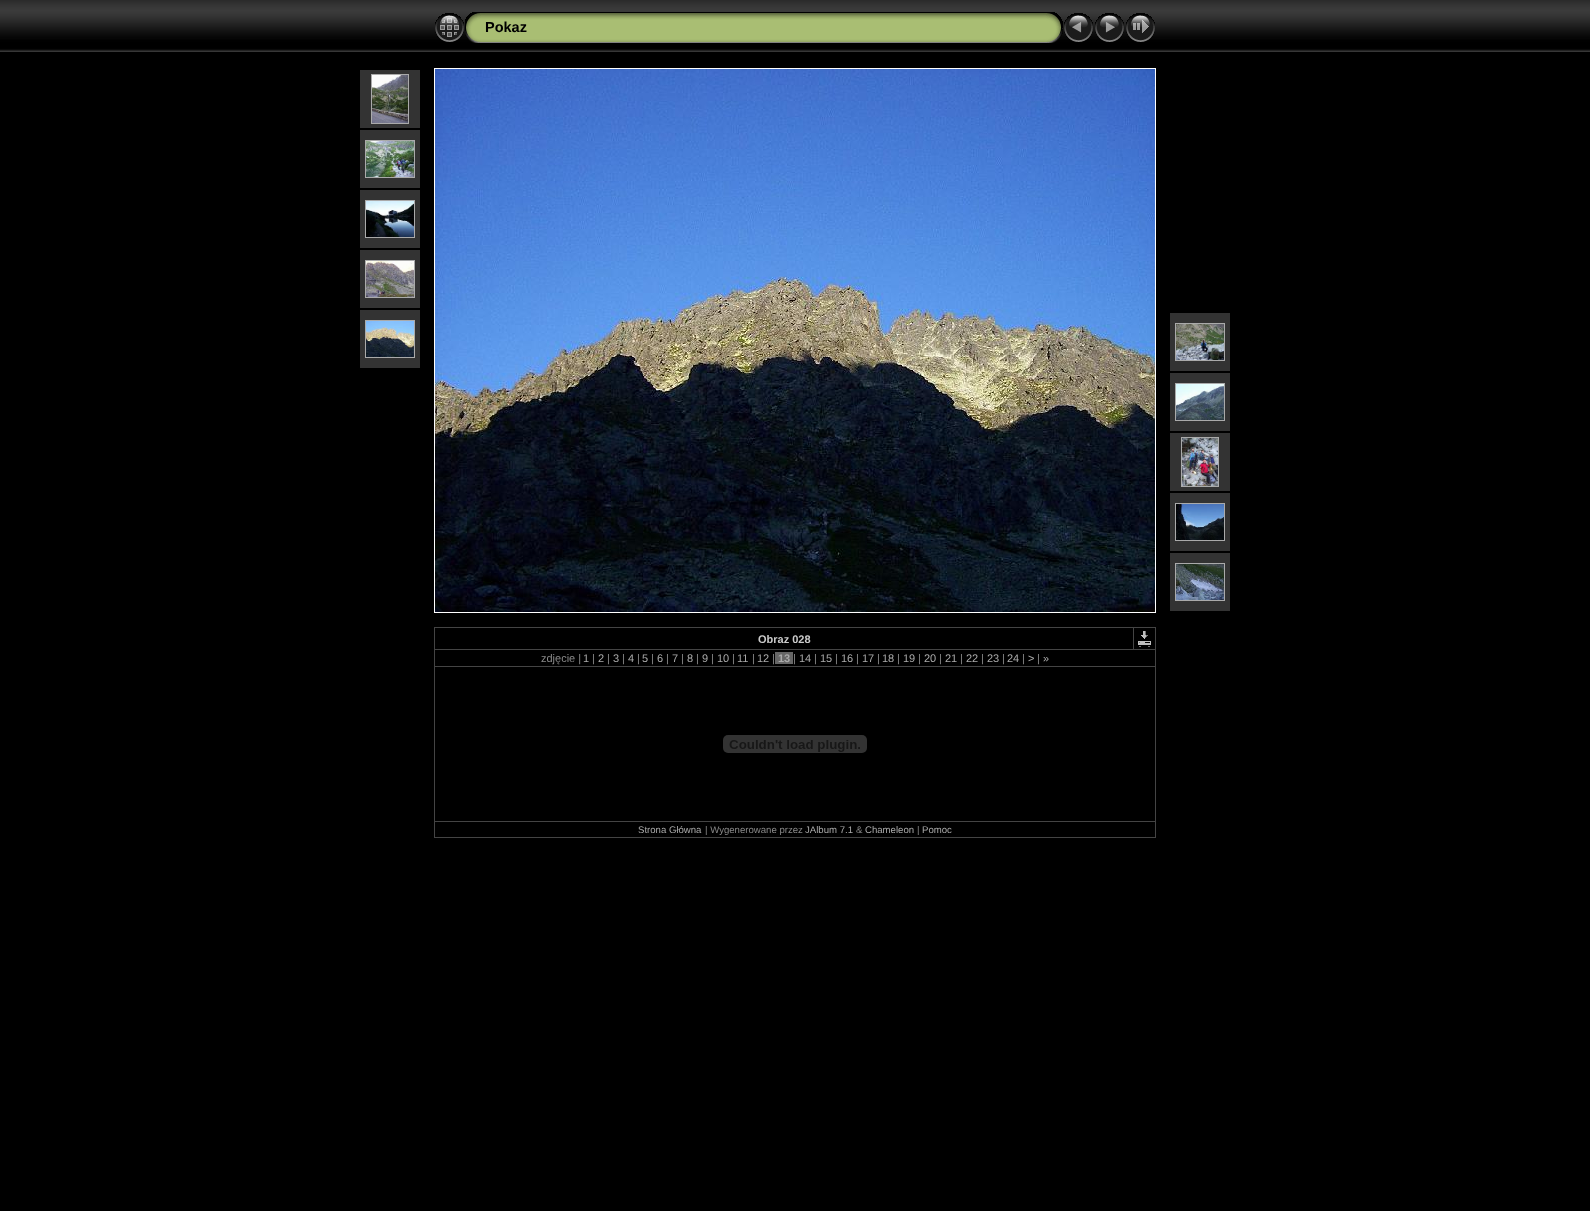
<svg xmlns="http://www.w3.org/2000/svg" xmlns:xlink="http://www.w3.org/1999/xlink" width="1590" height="1211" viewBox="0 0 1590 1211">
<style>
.cls-1{font:bold 14.5px Liberation Sans;fill:#000000}
.cls-2{font:bold 11px Liberation Sans;fill:#cccccc}
.cls-3{font:11px Liberation Sans;fill:#888888}
.cls-4{font:11px Liberation Sans;fill:#aaaaaa}
.cls-5{font:bold 11px Liberation Sans;fill:#aaaaaa}
.cls-6{font:9.6px Liberation Sans;fill:#aaaaaa}
.cls-7{font:9.6px Liberation Sans;fill:#888888}
</style>
<rect width="100%" height="100%" fill="#000000"/>
<image xlink:href="image0.png" x="0" y="0" width="1590" height="52"/>
<image xlink:href="image1.png" x="435" y="13" width="29" height="29"/>
<image xlink:href="image2.png" x="465" y="12" width="20" height="31"/>
<image xlink:href="image3.png" x="485" y="12" width="558" height="31"/>
<image xlink:href="image4.png" x="1043" y="12" width="20" height="31"/>
<image xlink:href="image5.png" x="1064" y="13" width="29" height="29"/>
<image xlink:href="image6.png" x="1095" y="13" width="29" height="29"/>
<image xlink:href="image7.png" x="1126" y="13" width="29" height="29"/>
<rect fill="#333333" x="360" y="70" width="60" height="58"/>
<rect fill="none" stroke="#aaaaaa" x="371.5" y="74.5" width="37" height="49"/>
<image xlink:href="image8.png" x="372" y="75" width="36" height="48"/>
<rect fill="#333333" x="360" y="130" width="60" height="58"/>
<rect fill="none" stroke="#aaaaaa" x="365.5" y="140.5" width="49" height="37"/>
<image xlink:href="image9.png" x="366" y="141" width="48" height="36"/>
<rect fill="#333333" x="360" y="190" width="60" height="58"/>
<rect fill="none" stroke="#aaaaaa" x="365.5" y="200.5" width="49" height="37"/>
<image xlink:href="image10.png" x="366" y="201" width="48" height="36"/>
<rect fill="#333333" x="360" y="250" width="60" height="58"/>
<rect fill="none" stroke="#aaaaaa" x="365.5" y="260.5" width="49" height="37"/>
<image xlink:href="image11.png" x="366" y="261" width="48" height="36"/>
<rect fill="#333333" x="360" y="310" width="60" height="58"/>
<rect fill="none" stroke="#aaaaaa" x="365.5" y="320.5" width="49" height="37"/>
<image xlink:href="image12.png" x="366" y="321" width="48" height="36"/>
<rect fill="none" stroke="#ffffff" x="434.5" y="68.5" width="721" height="544"/>
<image xlink:href="image13.png" x="435" y="69" width="720" height="543"/>
<rect fill="#333333" x="1170" y="313" width="60" height="58"/>
<rect fill="none" stroke="#aaaaaa" x="1175.5" y="323.5" width="49" height="37"/>
<image xlink:href="image14.png" x="1176" y="324" width="48" height="36"/>
<rect fill="#333333" x="1170" y="373" width="60" height="58"/>
<rect fill="none" stroke="#aaaaaa" x="1175.5" y="383.5" width="49" height="37"/>
<image xlink:href="image15.png" x="1176" y="384" width="48" height="36"/>
<rect fill="#333333" x="1170" y="433" width="60" height="58"/>
<rect fill="none" stroke="#aaaaaa" x="1181.5" y="437.5" width="37" height="49"/>
<image xlink:href="image16.png" x="1182" y="438" width="36" height="48"/>
<rect fill="#333333" x="1170" y="493" width="60" height="58"/>
<rect fill="none" stroke="#aaaaaa" x="1175.5" y="503.5" width="49" height="37"/>
<image xlink:href="image17.png" x="1176" y="504" width="48" height="36"/>
<rect fill="#333333" x="1170" y="553" width="60" height="58"/>
<rect fill="none" stroke="#aaaaaa" x="1175.5" y="563.5" width="49" height="37"/>
<image xlink:href="image18.png" x="1176" y="564" width="48" height="36"/>
<rect fill="#444444" x="434" y="627" width="722" height="1"/>
<rect fill="#444444" x="1155" y="627" width="1" height="211"/>
<rect fill="#444444" x="434" y="837" width="722" height="1"/>
<rect fill="#444444" x="434" y="627" width="1" height="211"/>
<rect fill="#444444" x="434" y="649" width="722" height="1"/>
<rect fill="#444444" x="1133" y="627" width="1" height="23"/>
<image xlink:href="image19.png" x="1138" y="631" width="13" height="16"/>
<rect fill="#666666" x="775" y="652" width="18" height="12"/>
<rect fill="#444444" x="434" y="666" width="722" height="1"/>
<image xlink:href="image20.png" x="723" y="735" width="144" height="18"/>
<rect fill="#444444" x="434" y="821" width="722" height="1"/>
<text class="cls-1" x="485" y="32">Pokaz</text>
<text class="cls-2" x="758" y="643">Obraz 028</text>
<text class="cls-3" x="541" y="662">zdjęcie |</text>
<text class="cls-4" x="583" y="662">1</text>
<text class="cls-3" x="592" y="662">|</text>
<text class="cls-4" x="598" y="662">2</text>
<text class="cls-3" x="607" y="662">|</text>
<text class="cls-4" x="613" y="662">3</text>
<text class="cls-3" x="622" y="662">|</text>
<text class="cls-4" x="628" y="662">4</text>
<text class="cls-3" x="637" y="662">|</text>
<text class="cls-4" x="642" y="662">5</text>
<text class="cls-3" x="651" y="662">|</text>
<text class="cls-4" x="657" y="662">6</text>
<text class="cls-3" x="666" y="662">|</text>
<text class="cls-4" x="672" y="662">7</text>
<text class="cls-3" x="681" y="662">|</text>
<text class="cls-4" x="687" y="662">8</text>
<text class="cls-3" x="696" y="662">|</text>
<text class="cls-4" x="702" y="662">9</text>
<text class="cls-3" x="711" y="662">|</text>
<text class="cls-4" x="717" y="662">10</text>
<text class="cls-3" x="732" y="662">|</text>
<text class="cls-4" x="737" y="662">11</text>
<text class="cls-3" x="752" y="662">|</text>
<text class="cls-4" x="757" y="662">12</text>
<text class="cls-3" x="772" y="662">|</text>
<text class="cls-5" x="778" y="662">13</text>
<text class="cls-3" x="793" y="662">|</text>
<text class="cls-4" x="799" y="662">14</text>
<text class="cls-3" x="814" y="662">|</text>
<text class="cls-4" x="820" y="662">15</text>
<text class="cls-3" x="835" y="662">|</text>
<text class="cls-4" x="841" y="662">16</text>
<text class="cls-3" x="856" y="662">|</text>
<text class="cls-4" x="862" y="662">17</text>
<text class="cls-3" x="877" y="662">|</text>
<text class="cls-4" x="882" y="662">18</text>
<text class="cls-3" x="897" y="662">|</text>
<text class="cls-4" x="903" y="662">19</text>
<text class="cls-3" x="918" y="662">|</text>
<text class="cls-4" x="924" y="662">20</text>
<text class="cls-3" x="939" y="662">|</text>
<text class="cls-4" x="945" y="662">21</text>
<text class="cls-3" x="960" y="662">|</text>
<text class="cls-4" x="966" y="662">22</text>
<text class="cls-3" x="981" y="662">|</text>
<text class="cls-4" x="987" y="662">23</text>
<text class="cls-3" x="1002" y="662">|</text>
<text class="cls-4" x="1007" y="662">24</text>
<text class="cls-3" x="1022" y="662">|</text>
<text class="cls-4" x="1028" y="662">&gt;</text>
<text class="cls-3" x="1037" y="662">|</text>
<text class="cls-4" x="1043" y="662">»</text>
<text class="cls-6" x="638" y="833">Strona Główna</text>
<text class="cls-7" x="705" y="833">| Wygenerowane przez</text>
<text class="cls-6" x="805" y="833">JAlbum 7.1</text>
<text class="cls-7" x="856" y="833">&amp;</text>
<text class="cls-6" x="865" y="833">Chameleon</text>
<text class="cls-7" x="917" y="833">|</text>
<text class="cls-6" x="922" y="833">Pomoc</text>
</svg>
